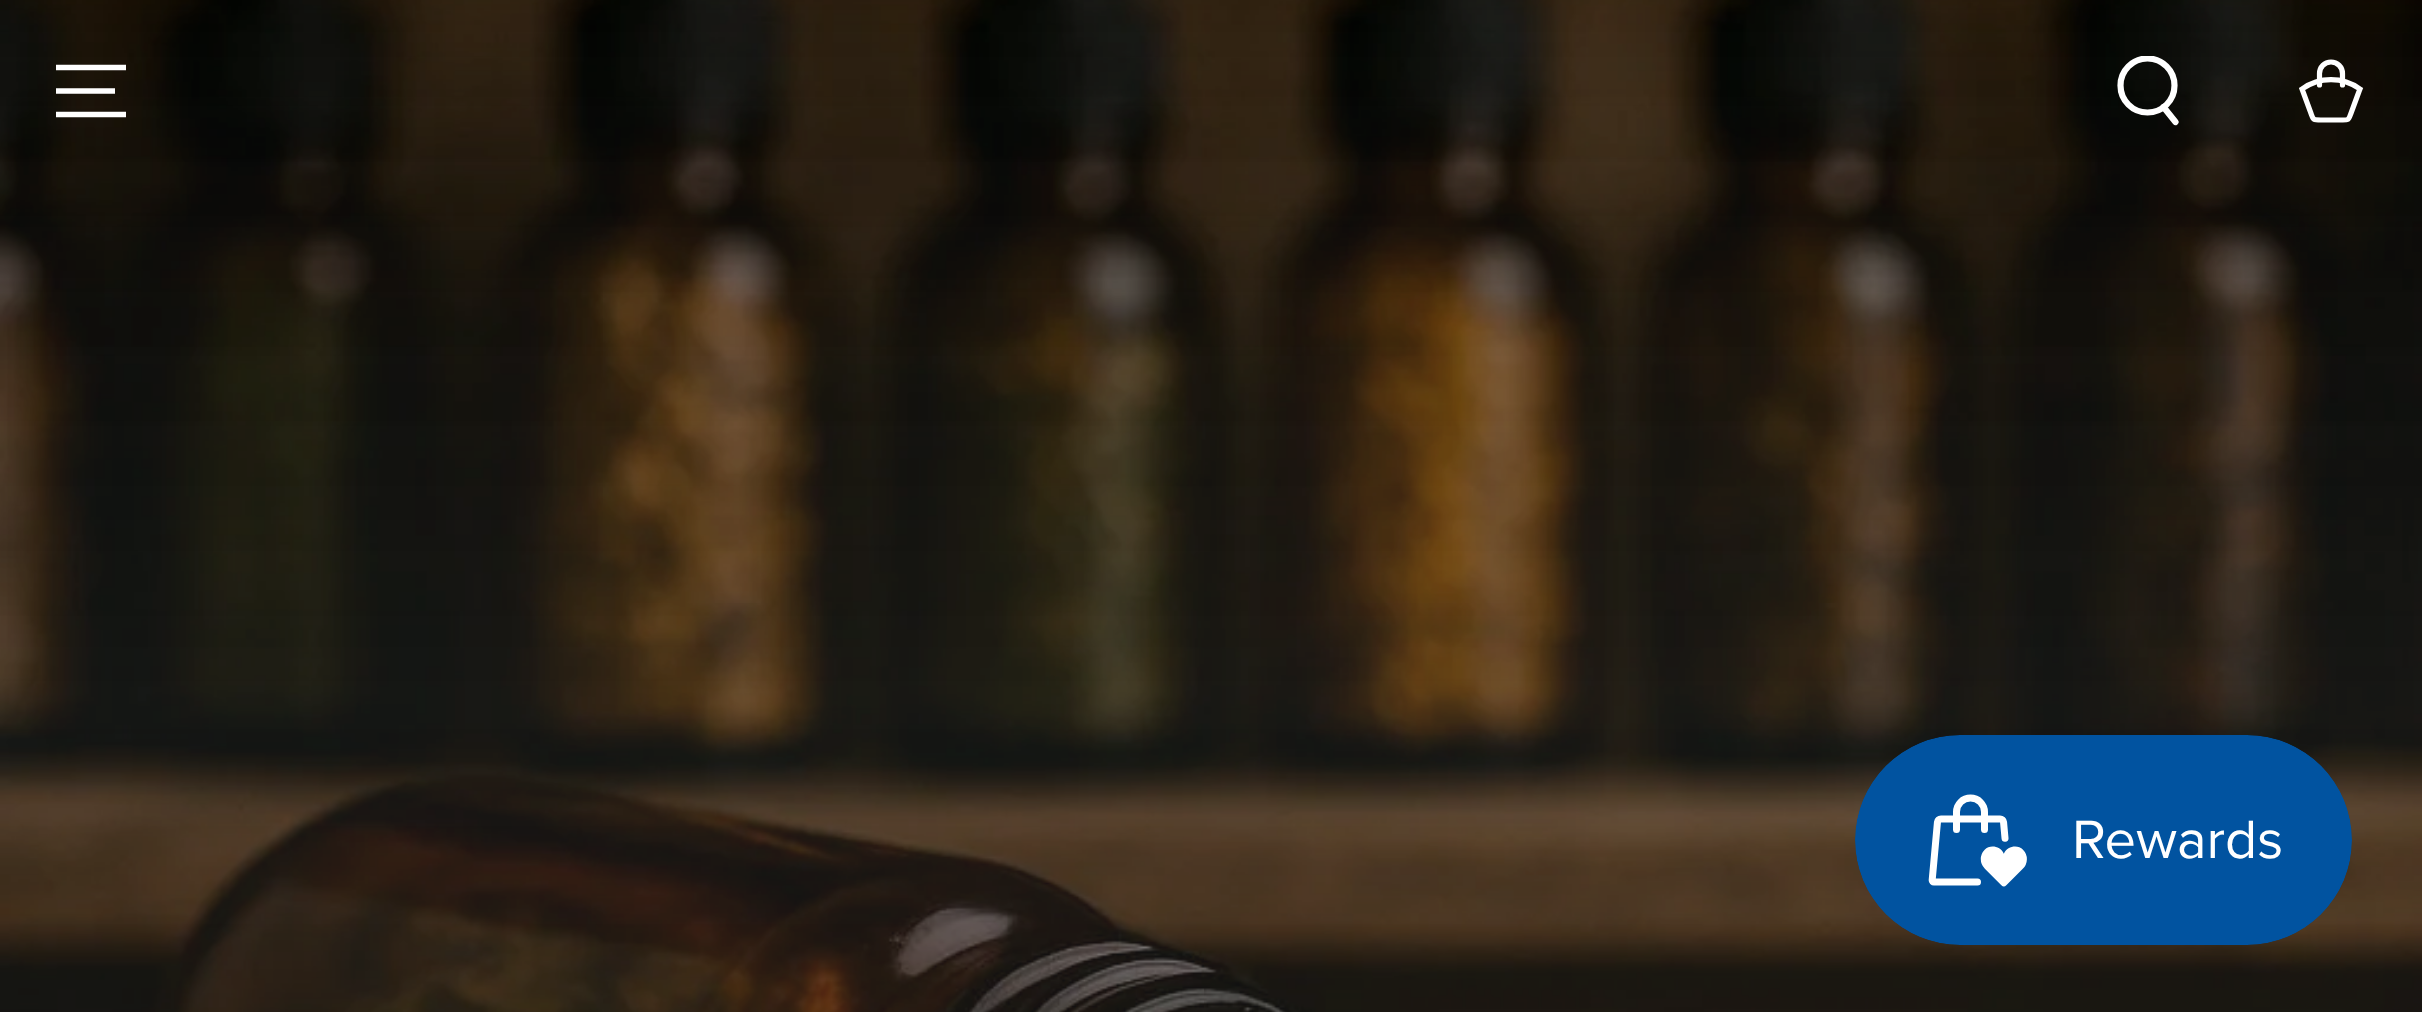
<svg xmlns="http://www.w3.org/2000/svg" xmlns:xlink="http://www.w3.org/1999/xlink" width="2422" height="1012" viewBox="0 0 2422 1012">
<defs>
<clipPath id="clip1"><rect x="2114" y="56" width="70" height="70"/></clipPath>
</defs>
<rect width="100%" height="100%" fill="#ffffff"/>
<image xlink:href="image0.png" x="0" y="0" width="2422" height="1012"/>
<path fill="none" stroke="#ffffff" stroke-width="5.7" d="M56 114.5H126M56 91H115M56 67.5H126"/>
<g clip-path="url(#clip1)">
<circle fill="none" stroke="#ffffff" stroke-width="6.2" cx="2147.5" cy="85.5" r="27"/>
</g>
<path fill="none" stroke="#ffffff" stroke-width="6.2" stroke-linecap="round" d="M2163.5 107L2175.5 122"/>
<path fill="none" stroke="#ffffff" stroke-width="5.2" stroke-linecap="round" stroke-linejoin="round" d="M2342.5 85V73.5C2342.5 67 2337.5 62 2331 62C2324.5 62 2319.5 67 2319.5 73.5V85"/>
<path fill="none" stroke="#ffffff" stroke-width="5.2" d="M2355.5 101L2350.5 114.5C2348.5 120.5 2348 120 2341 120H2321C2312.5 120 2313.5 120 2310.5 112L2302 89C2319.5 76.5 2342.5 76.5 2360 89L2359 91.5Z"/>
<image xlink:href="image1.png" x="1855" y="735" width="497" height="210"/>
</svg>
